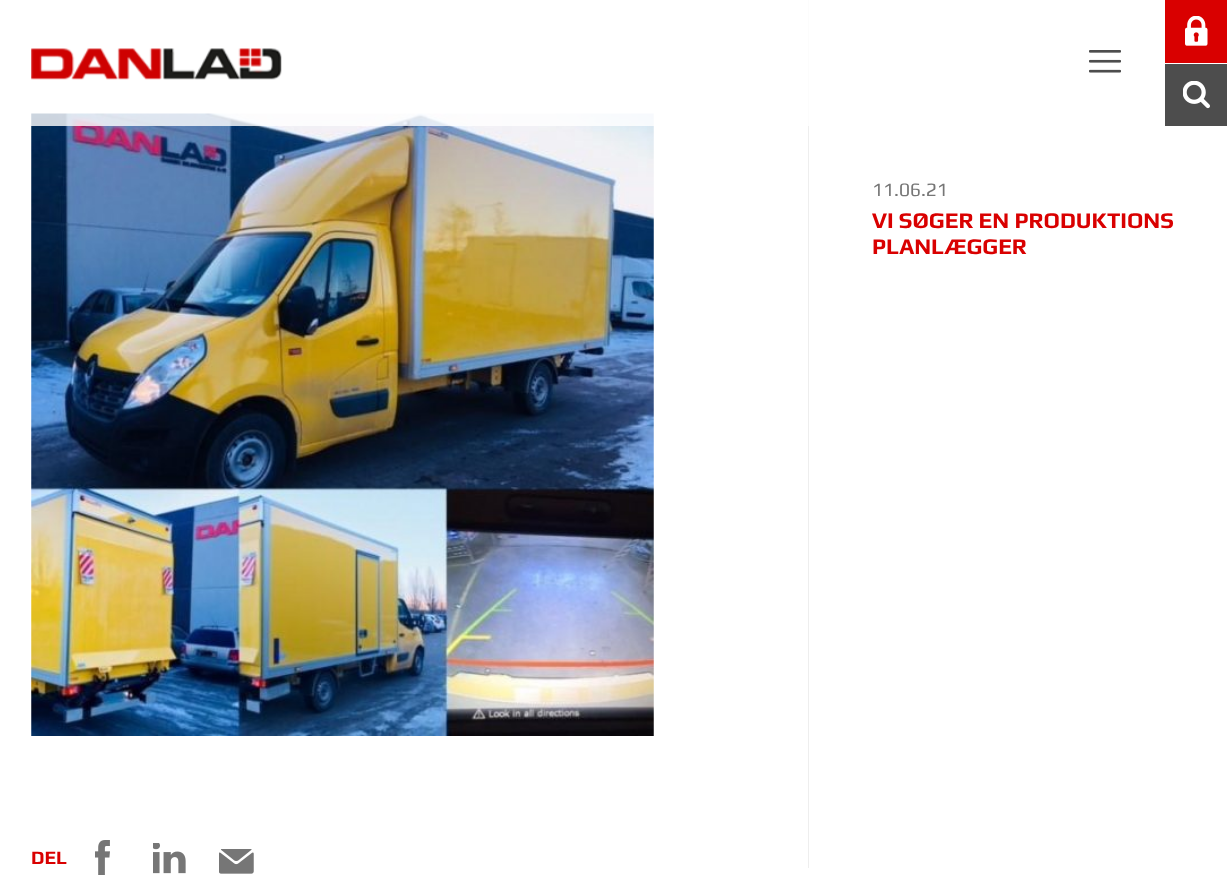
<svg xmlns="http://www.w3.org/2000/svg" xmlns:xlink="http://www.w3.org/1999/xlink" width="1227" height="889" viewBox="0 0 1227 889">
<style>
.cls-1{font:19px Play;fill:#767676}
.cls-2{font:bold 22.5px Play;fill:#d90000}
.cls-3{font:bold 19px Play;fill:#d90000}
</style>
<rect width="100%" height="100%" fill="#ffffff"/>
<rect fill="#eeeeee" x="808" y="0" width="1" height="868"/>
<image xlink:href="image4.png" x="31" y="113" width="623" height="623"/>
<rect fill="#ffffff" fill-opacity="0.8" x="31" y="0" width="778" height="126"/>
<image xlink:href="image0.png" x="31" y="48" width="251" height="32"/>
<image xlink:href="image1.png" x="1089" y="50" width="32" height="23"/>
<rect fill="#d90000" x="1165" y="0" width="62" height="63"/>
<image xlink:href="image2.png" x="1185" y="16" width="23" height="30"/>
<rect fill="#4d4d4d" x="1165" y="64" width="62" height="62"/>
<image xlink:href="image3.png" x="1183" y="81" width="27" height="28"/>
<image xlink:href="image5.png" x="95" y="840" width="15" height="35"/>
<image xlink:href="image6.png" x="153" y="843" width="33" height="31"/>
<image xlink:href="image7.png" x="219" y="849" width="35" height="25"/>
<text class="cls-1" x="872" y="196">11.06.21</text>
<text class="cls-2"><tspan x="872" y="228">VI SØGER EN PRODUKTIONS</tspan><tspan x="872" y="254">PLANLÆGGER</tspan></text>
<text class="cls-3" x="31" y="864">DEL</text>
</svg>
